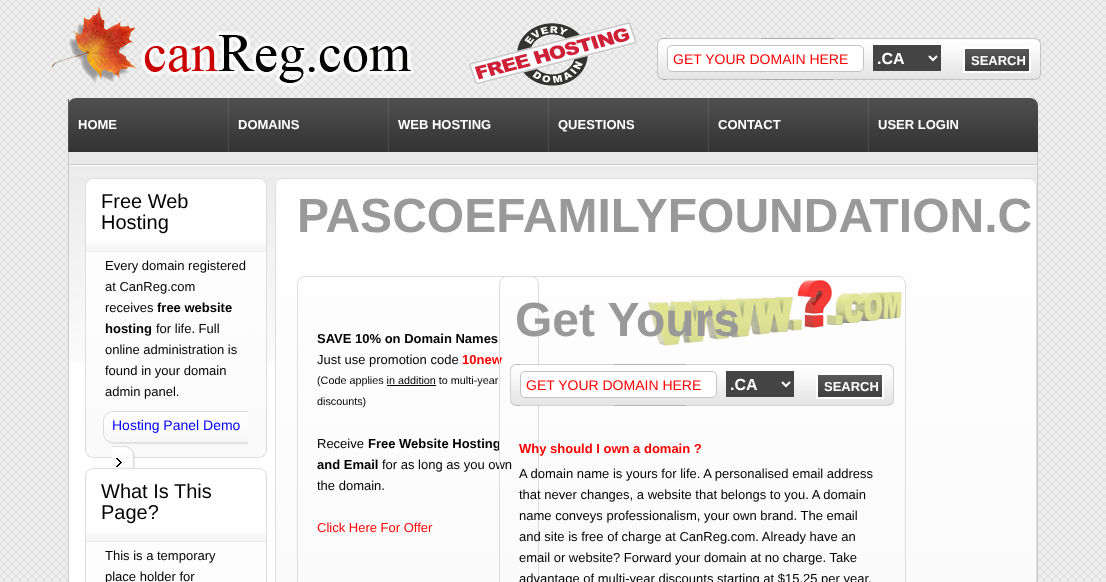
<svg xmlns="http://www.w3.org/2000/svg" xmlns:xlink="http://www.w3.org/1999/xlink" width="1106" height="582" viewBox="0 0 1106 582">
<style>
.cls-1{font:14px Liberation Sans;fill:#ff0000}
.cls-2{font:bold 16px Liberation Sans;fill:#ffffff}
.cls-3{font:bold 13px Liberation Sans;fill:#ffffff}
.cls-4{font:20px Liberation Sans;fill:#000000}
.cls-5{font:13px Liberation Sans;fill:#000000}
.cls-6{font:bold 13px Liberation Sans;fill:#000000}
.cls-7{font:14px Liberation Sans;fill:#0000ff}
.cls-8{font:bold 48px Liberation Sans;fill:#999999}
.cls-9{font:bold 13px Liberation Sans;fill:#ff0000}
.cls-10{font:10.8px Liberation Sans;fill:#000000}
.cls-11{font:13px Liberation Sans;fill:#ff0000}
</style>
<defs>
<clipPath id="clip1"><rect x="85" y="178" width="182" height="280" rx="8"/></clipPath>
<linearGradient id="g1" gradientUnits="userSpaceOnUse" x1="176" y1="179" x2="176" y2="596"><stop offset="0" stop-color="#ffffff"/><stop offset="1" stop-color="#f7f7f7"/></linearGradient>
<clipPath id="clip2"><rect x="85" y="468" width="182" height="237" rx="8"/></clipPath>
<linearGradient id="g2" gradientUnits="userSpaceOnUse" x1="176" y1="469" x2="176" y2="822"><stop offset="0" stop-color="#ffffff"/><stop offset="1" stop-color="#f7f7f7"/></linearGradient>
<clipPath id="clip3"><rect x="275" y="178" width="762" height="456" rx="8"/></clipPath>
<linearGradient id="g3" gradientUnits="userSpaceOnUse" x1="656" y1="179" x2="656" y2="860"><stop offset="0" stop-color="#ffffff"/><stop offset="1" stop-color="#f7f7f7"/></linearGradient>
</defs>
<rect width="100%" height="100%" fill="#ffffff"/>
<image xlink:href="image0.png" x="0" y="0" width="1106" height="582"/>
<image xlink:href="image1.png" x="51" y="7" width="362" height="80"/>
<image xlink:href="image2.png" x="468" y="22" width="169" height="64"/>
<image xlink:href="image3.png" x="657" y="38" width="10" height="42"/>
<image xlink:href="image4.png" x="663" y="38" width="378" height="42"/>
<rect fill="#ffffff" stroke="#c2c2c2" x="667.5" y="45.5" width="196" height="26" rx="4.5"/>
<rect fill="#444444" x="873" y="45" width="68" height="26"/>
<path fill="none" stroke="#ffffff" stroke-width="2" d="M929 56L933 60L937 56"/>
<image xlink:href="image5.png" x="965" y="49" width="64" height="22"/>
<rect fill="none" stroke="#ffffff" stroke-width="2" x="964" y="48" width="66" height="24"/>
<rect fill="#ffffff" x="68" y="98" width="970" height="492" rx="8"/>
<image xlink:href="image6.png" x="69" y="98" width="969" height="264"/>
<path fill="#cacaca" fill-rule="evenodd" d="M76 98H1030C1034 98 1038 102 1038 106V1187C1038 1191 1034 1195 1030 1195H76C72 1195 68 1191 68 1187V106C68 102 72 98 76 98ZM76 98H1030C1034 98 1037 102 1037 106V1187C1037 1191 1034 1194 1030 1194H76C72 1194 69 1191 69 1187V106C69 102 72 98 76 98Z"/>
<image xlink:href="image7.png" x="69" y="152" width="968" height="14"/>
<image xlink:href="image8.png" x="69" y="98" width="969" height="54"/>
<image xlink:href="image9.png" x="68" y="99" width="1" height="53"/>
<image xlink:href="image9.png" x="228" y="99" width="1" height="53"/>
<image xlink:href="image9.png" x="388" y="99" width="1" height="53"/>
<image xlink:href="image9.png" x="548" y="99" width="1" height="53"/>
<image xlink:href="image9.png" x="708" y="99" width="1" height="53"/>
<image xlink:href="image9.png" x="868" y="99" width="1" height="53"/>
<g clip-path="url(#clip1)">
<rect fill="url(#g1)" x="85" y="179" width="182" height="278"/>
</g>
<rect fill="none" stroke="#dddddd" x="85.5" y="178.5" width="181" height="279" rx="7.5"/>
<image xlink:href="image10.png" x="86" y="243" width="180" height="9"/>
<image xlink:href="image11.png" x="103" y="411" width="9" height="33"/>
<image xlink:href="image12.png" x="112" y="411" width="136" height="34"/>
<image xlink:href="image13.png" x="112" y="446" width="23" height="22"/>
<g clip-path="url(#clip2)">
<rect fill="url(#g2)" x="85" y="469" width="182" height="113"/>
</g>
<rect fill="none" stroke="#dddddd" x="85.5" y="468.5" width="181" height="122" rx="7.5"/>
<image xlink:href="image10.png" x="86" y="533" width="180" height="9"/>
<g clip-path="url(#clip3)">
<rect fill="url(#g3)" x="275" y="179" width="762" height="403"/>
</g>
<rect fill="none" stroke="#dedede" x="275.5" y="178.5" width="761" height="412" rx="7.5"/>
<rect fill="none" stroke="#dddddd" x="297.5" y="276.5" width="241" height="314" rx="7.5"/>
<rect fill="#000000" x="387" y="385" width="49" height="1"/>
<image xlink:href="image14.png" x="648" y="280" width="254" height="66"/>
<text class="cls-1" x="673" y="64">GET YOUR DOMAIN HERE</text>
<text class="cls-2" x="877" y="64">.CA</text>
<text class="cls-3" x="971" y="65">SEARCH</text>
<text class="cls-3" x="78" y="129">HOME</text>
<text class="cls-3" x="238" y="129">DOMAINS</text>
<text class="cls-3" x="398" y="129">WEB HOSTING</text>
<text class="cls-3" x="558" y="129">QUESTIONS</text>
<text class="cls-3" x="718" y="129">CONTACT</text>
<text class="cls-3" x="878" y="129">USER LOGIN</text>
<text class="cls-4"><tspan x="101" y="208">Free Web</tspan><tspan x="101" y="229">Hosting</tspan></text>
<text class="cls-5"><tspan x="105" y="270">Every domain registered</tspan><tspan x="105" y="291">at CanReg.com</tspan><tspan x="105" y="312">receives</tspan></text>
<text class="cls-6" x="157" y="312">free website</text>
<text class="cls-6" x="105" y="333">hosting</text>
<text class="cls-5" x="156" y="333">for life. Full</text>
<text class="cls-5"><tspan x="105" y="354">online administration is</tspan><tspan x="105" y="375">found in your domain</tspan><tspan x="105" y="396">admin panel.</tspan></text>
<text class="cls-7" x="112" y="430">Hosting Panel Demo</text>
<text class="cls-4"><tspan x="101" y="498">What Is This</tspan><tspan x="101" y="519">Page?</tspan></text>
<text class="cls-5"><tspan x="105" y="560">This is a temporary</tspan><tspan x="105" y="581">place holder for</tspan></text>
<text class="cls-8" x="297" y="232">PASCOEFAMILYFOUNDATION.C</text>
<text class="cls-6" x="317" y="343">SAVE 10% on Domain Names</text>
<text class="cls-5" x="317" y="364">Just use promotion code</text>
<text class="cls-9" x="462" y="364">10new</text>
<text class="cls-10"><tspan x="317" y="384">(Code applies in addition to multi-year</tspan><tspan x="317" y="405">discounts)</tspan></text>
<text class="cls-5" x="317" y="448">Receive</text>
<text class="cls-6" x="368" y="448">Free Website Hosting</text>
<text class="cls-6" x="317" y="469">and Email</text>
<text class="cls-5" x="382" y="469">for as long as you own</text>
<text class="cls-5" x="317" y="490">the domain.</text>
<text class="cls-11" x="317" y="532">Click Here For Offer</text>
<rect fill="none" stroke="#dddddd" x="499.5" y="276.5" width="406" height="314" rx="7.5"/>
<text class="cls-8" x="515" y="336">Get Yours</text>
<image xlink:href="image15.png" x="510" y="364" width="10" height="42"/>
<image xlink:href="image16.png" x="516" y="364" width="378" height="42"/>
<rect fill="#ffffff" stroke="#c2c2c2" x="520.5" y="371.5" width="196" height="26" rx="4.5"/>
<text class="cls-1" x="526" y="390">GET YOUR DOMAIN HERE</text>
<rect fill="#444444" x="726" y="371" width="68" height="26"/>
<path fill="none" stroke="#ffffff" stroke-width="2" d="M782 382L786 386L790 382"/>
<text class="cls-2" x="730" y="390">.CA</text>
<image xlink:href="image5.png" x="818" y="375" width="64" height="22"/>
<rect fill="none" stroke="#ffffff" stroke-width="2" x="817" y="374" width="66" height="24"/>
<text class="cls-3" x="824" y="391">SEARCH</text>
<text class="cls-9" x="519" y="453">Why should I own a domain ?</text>
<text class="cls-5"><tspan x="519" y="478">A domain name is yours for life. A personalised email address</tspan><tspan x="519" y="499">that never changes, a website that belongs to you. A domain</tspan><tspan x="519" y="520">name conveys professionalism, your own brand. The email</tspan><tspan x="519" y="541">and site is free of charge at CanReg.com. Already have an</tspan><tspan x="519" y="562">email or website? Forward your domain at no charge. Take</tspan><tspan x="519" y="583">advantage of multi-year discounts starting at $15.25 per year.</tspan></text>
</svg>
